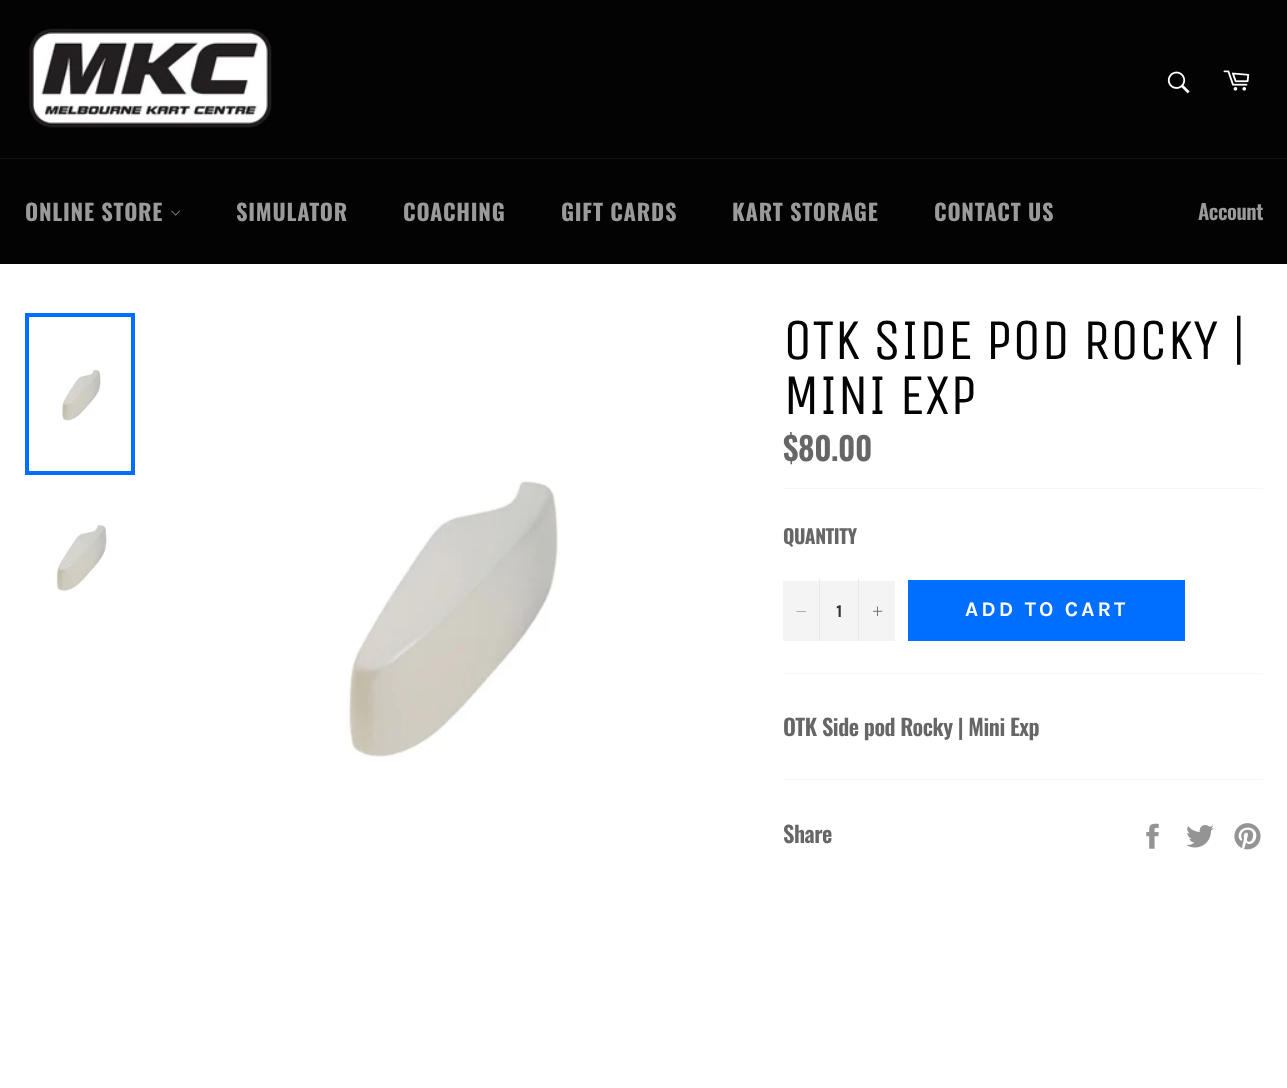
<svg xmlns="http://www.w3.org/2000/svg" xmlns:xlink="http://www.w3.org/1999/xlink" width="1287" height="1088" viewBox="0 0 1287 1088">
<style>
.cls-1{font:bold 22.5px Oswald;letter-spacing:0.75px;fill:#9a9a9a}
.cls-2{font:600 21px Oswald;letter-spacing:-0.45px;fill:#9a9a9a}
.cls-3{font:57.75px Unica One;letter-spacing:-0.45px;fill:#030303}
.cls-4{font:600 32px Oswald;letter-spacing:-0.45px;fill:#666666}
.cls-5{font:bold 19.5px Oswald;letter-spacing:-0.45px;fill:#666666}
.cls-6{font:bold 18px Karla;fill:#333333}
.cls-7{font:bold 21px Karla;letter-spacing:3.1px;fill:#ffffff}
.cls-8{font:600 22.5px Oswald;letter-spacing:-0.45px;fill:#666666}
</style>
<rect width="100%" height="100%" fill="#030303"/>
<image xlink:href="image0.png" x="28" y="28" width="244" height="100"/>
<image xlink:href="image1.png" x="1167" y="71" width="23" height="23"/>
<image xlink:href="image2.png" x="1223" y="70" width="27" height="21"/>
<rect fill="#101010" x="0" y="158" width="1287" height="1"/>
<image xlink:href="image3.png" x="171" y="210" width="9" height="6"/>
<rect fill="#ffffff" x="0" y="264" width="1287" height="824"/>
<image xlink:href="image4.png" x="62" y="369" width="39" height="52"/>
<rect fill="none" stroke="#006eff" stroke-width="4" x="27" y="315" width="106" height="158"/>
<image xlink:href="image5.png" x="56" y="525" width="51" height="67"/>
<image xlink:href="image6.png" x="346" y="481" width="214" height="276"/>
<rect fill="#f7f7f7" x="783" y="488" width="480" height="1"/>
<rect fill="#f4f4f4" x="783" y="581" width="112" height="60"/>
<rect fill="#e7e7e7" x="819" y="579" width="1" height="62"/>
<path fill="#666666" fill-rule="evenodd" d="M806 611V611.5H796.5V611Z"/>
<rect fill="#e7e7e7" x="858" y="579" width="1" height="62"/>
<image xlink:href="image7.png" x="873" y="606" width="10" height="10"/>
<rect fill="#006eff" x="908" y="580" width="277" height="61"/>
<rect fill="#f7f7f7" x="783" y="673" width="480" height="1"/>
<rect fill="#f7f7f7" x="783" y="779" width="480" height="1"/>
<image xlink:href="image8.png" x="1146" y="823" width="13" height="26"/>
<image xlink:href="image9.png" x="1186" y="825" width="28" height="23"/>
<image xlink:href="image10.png" x="1234" y="823" width="27" height="27"/>
<text class="cls-1" x="25" y="221">ONLINE STORE</text>
<text class="cls-1" x="236" y="221">SIMULATOR</text>
<text class="cls-1" x="403" y="221">COACHING</text>
<text class="cls-1" x="561" y="221">GIFT CARDS</text>
<text class="cls-1" x="732" y="221">KART STORAGE</text>
<text class="cls-1" x="934" y="221">CONTACT US</text>
<text class="cls-2" x="1198" y="220">Account</text>
<text class="cls-3"><tspan x="783" y="359">OTK SIDE POD ROCKY |</tspan><tspan x="783" y="414">MINI EXP</tspan></text>
<text class="cls-4" x="783" y="461">$80.00</text>
<text class="cls-5" x="783" y="544">QUANTITY</text>
<text class="cls-6" x="836" y="617">1</text>
<text class="cls-7" x="965" y="616">ADD TO CART</text>
<text class="cls-8" x="783" y="736">OTK Side pod Rocky | Mini Exp</text>
<text class="cls-8" x="783" y="843">Share</text>
</svg>
